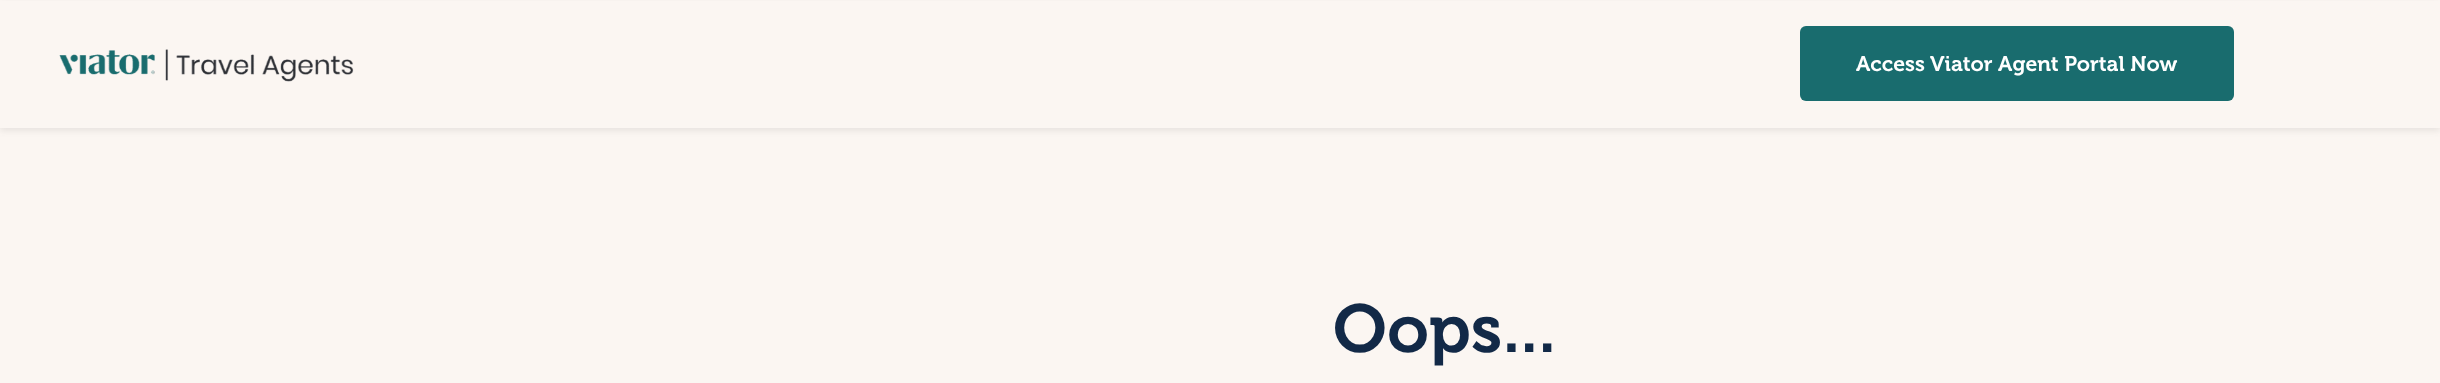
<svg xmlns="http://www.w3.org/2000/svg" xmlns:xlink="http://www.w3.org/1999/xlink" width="2440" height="383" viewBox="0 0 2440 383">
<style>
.cls-1{font:600 21.25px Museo;fill:#ffffff}
.cls-2{font:600 67.5px Museo;fill:#122947}
</style>
<rect width="100%" height="100%" fill="#fbf6f2"/>
<rect fill="#464646" fill-opacity="0.1" filter="blur(3px)" x="0" y="4" width="2440" height="127"/>
<rect fill="#fbf6f2" x="0" y="1" width="2440" height="127"/>
<image xlink:href="image0.png" x="59" y="49" width="295" height="33"/>
<rect fill="#196c6e" x="1800" y="26" width="434" height="75" rx="6"/>
<text class="cls-1" x="1856" y="71">Access Viator Agent Portal Now</text>
<text class="cls-2" x="1333" y="352">Oops...</text>
</svg>
